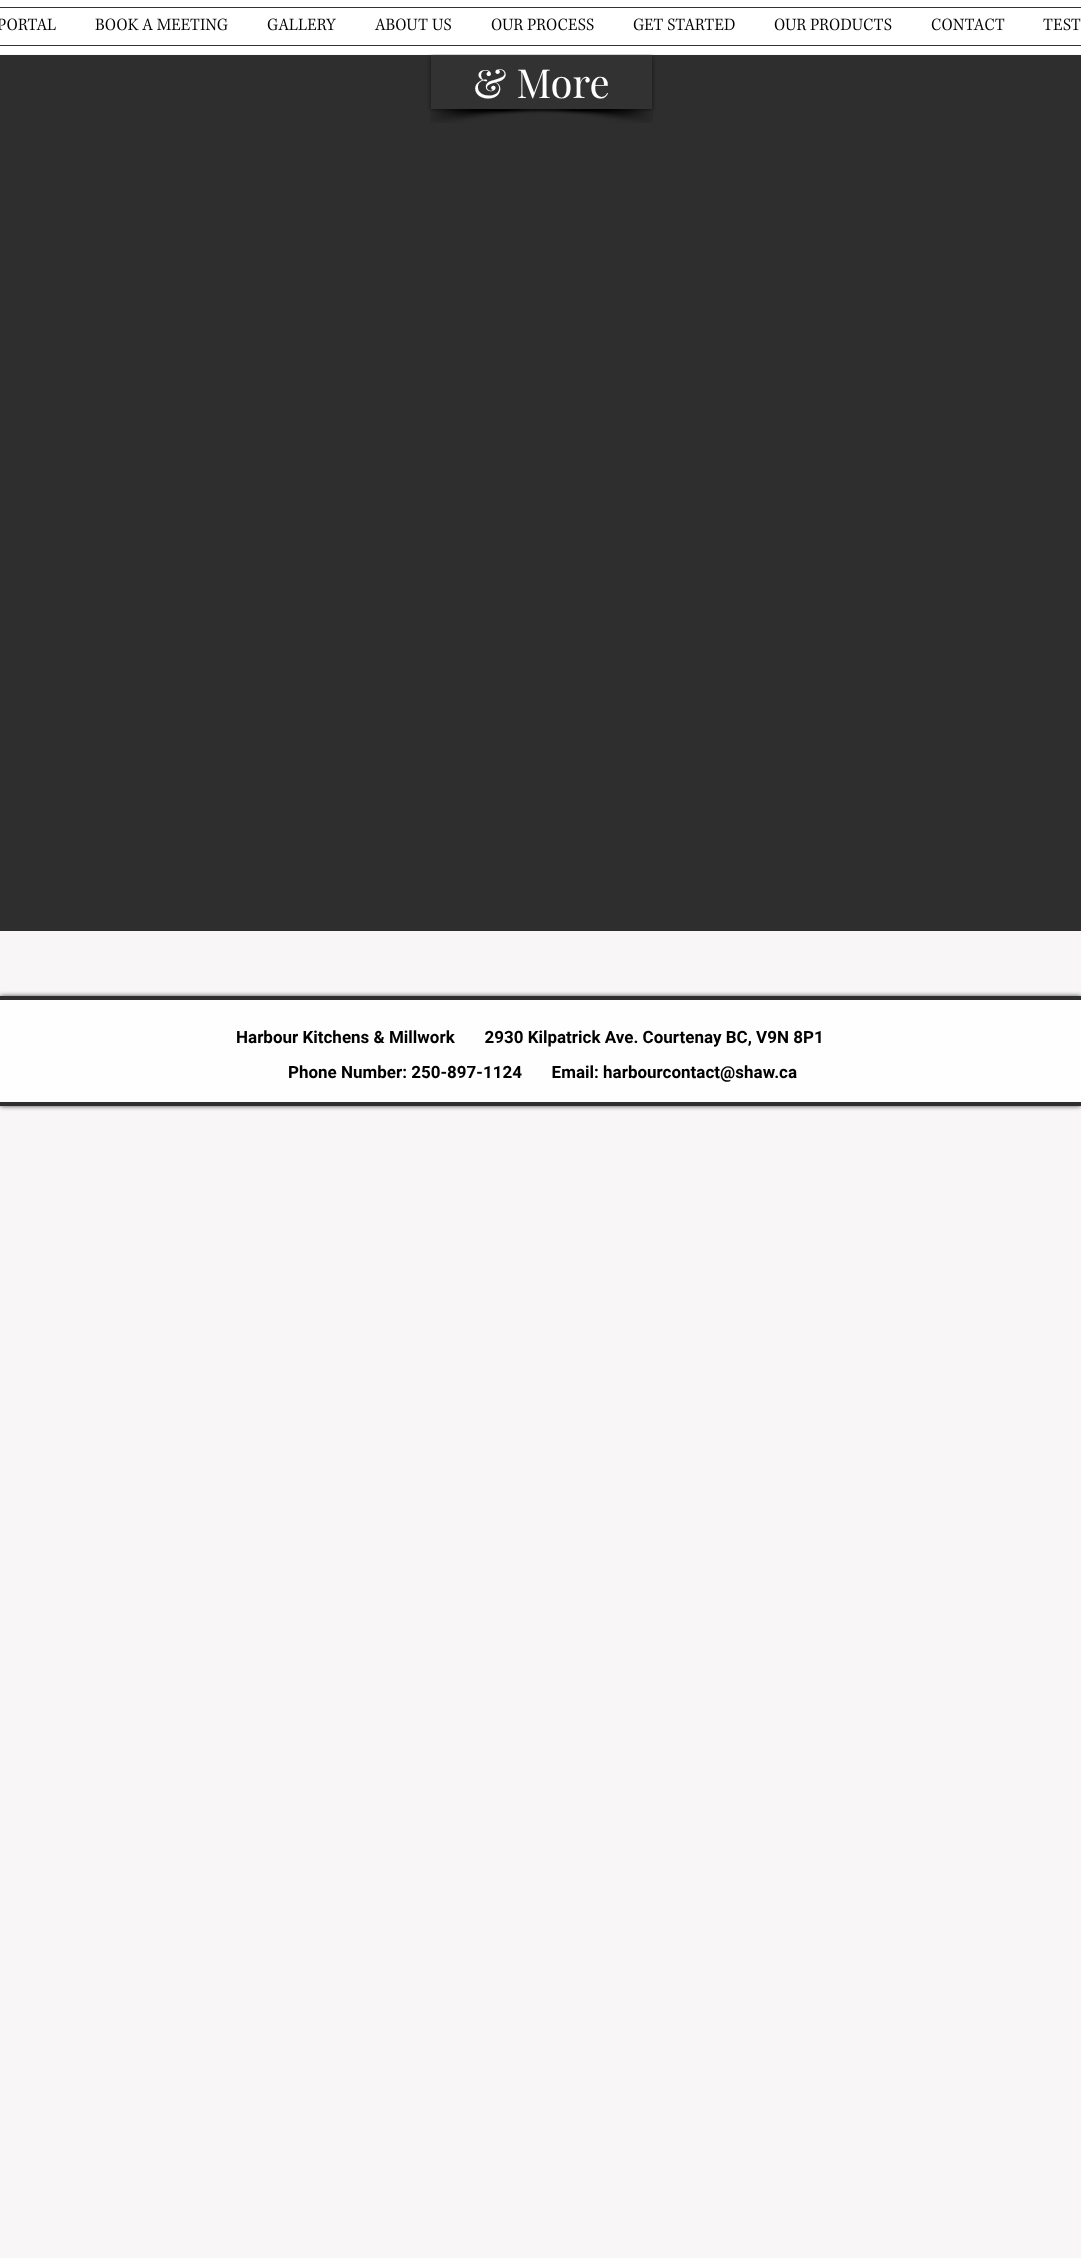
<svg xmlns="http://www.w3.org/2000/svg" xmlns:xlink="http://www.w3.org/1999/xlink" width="1081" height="2258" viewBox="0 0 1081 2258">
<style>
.cls-1{font:40px Playfair Display;fill:#ffffff}
.cls-2{font:bold 17px Roboto;fill:#000000}
</style>
<rect width="100%" height="100%" fill="#f8f6f6"/>
<rect fill="#2f2e2e" x="0" y="55" width="1081" height="876"/>
<image xlink:href="image9.png" x="430" y="109" width="127" height="14"/>
<image xlink:href="image10.png" x="533" y="109" width="120" height="14"/>
<rect fill="#000000" fill-opacity="0.6" filter="blur(2px)" x="431" y="56" width="221" height="54"/>
<rect fill="#ffffff" x="0" y="0" width="1081" height="54"/>
<rect fill="#323232" x="0" y="7" width="1081" height="1"/>
<rect fill="#323232" x="0" y="45" width="1081" height="1"/>
<image xlink:href="image0.png" x="0" y="18" width="56" height="13"/>
<image xlink:href="image1.png" x="95" y="18" width="133" height="13"/>
<image xlink:href="image2.png" x="267" y="18" width="69" height="13"/>
<image xlink:href="image3.png" x="374" y="18" width="77" height="13"/>
<image xlink:href="image4.png" x="491" y="18" width="103" height="13"/>
<image xlink:href="image5.png" x="633" y="18" width="102" height="13"/>
<image xlink:href="image6.png" x="774" y="18" width="118" height="13"/>
<image xlink:href="image7.png" x="931" y="18" width="74" height="13"/>
<image xlink:href="image8.png" x="1043" y="18" width="38" height="13"/>
<rect fill="#323232" x="431" y="55" width="221" height="54"/>
<rect fill="#000000" fill-opacity="0.7" filter="blur(2.5px)" x="0" y="996" width="1081" height="110"/>
<rect fill="#fefefe" x="0" y="1000" width="1081" height="102"/>
<rect fill="#2f2e2e" x="0" y="996" width="1081" height="4"/>
<rect fill="#2f2e2e" x="0" y="1102" width="1081" height="4"/>
<text class="cls-1" x="473" y="98">&amp; More</text>
<text class="cls-2" xml:space="preserve" x="236" y="1043">Harbour Kitchens &amp; Millwork       2930 Kilpatrick Ave. Courtenay BC, V9N 8P1</text>
<text class="cls-2" xml:space="preserve" x="288" y="1078">Phone Number: 250-897-1124       Email: harbourcontact@shaw.ca</text>
</svg>
